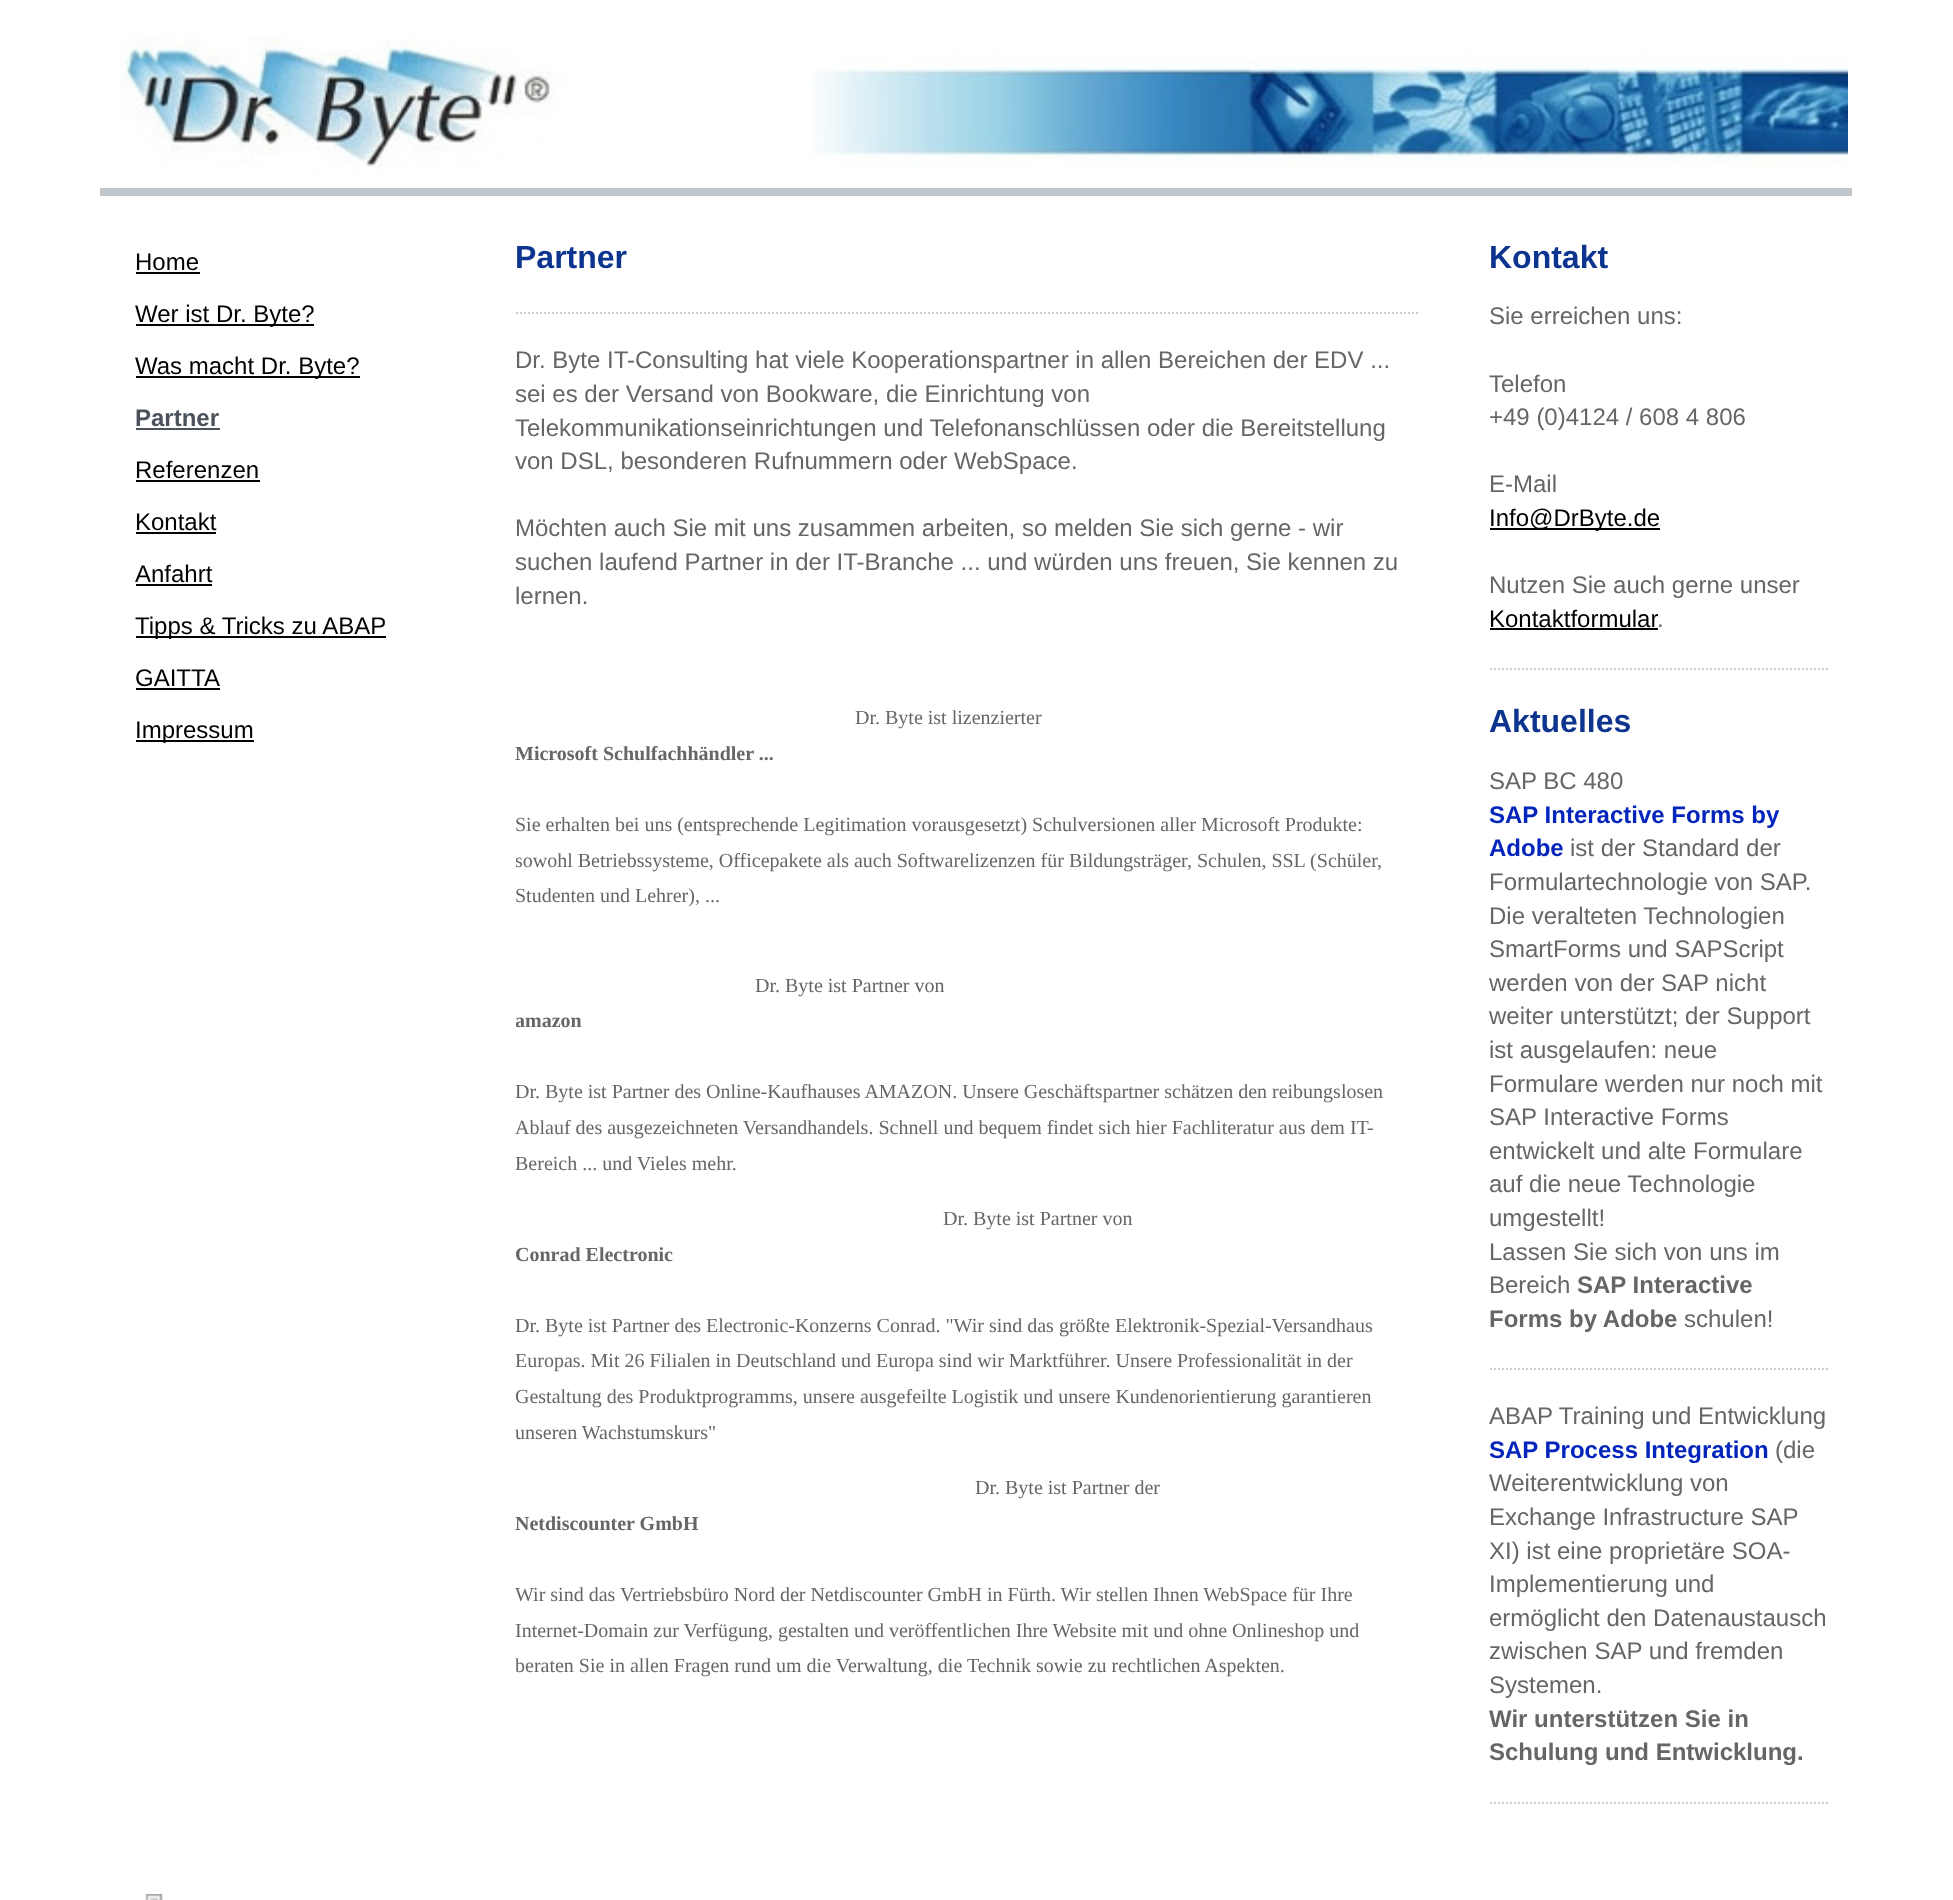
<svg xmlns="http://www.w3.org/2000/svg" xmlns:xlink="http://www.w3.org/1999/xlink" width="1953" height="1900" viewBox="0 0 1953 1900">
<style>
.cls-1{font:24px Liberation Sans;fill:#000000}
.cls-2{font:bold 24px Liberation Sans;fill:#4b525c}
.cls-3{font:bold 32px Liberation Sans;fill:#0d358f}
.cls-4{font:24px Liberation Sans;fill:#666666}
.cls-5{font:20px Liberation Serif;fill:#666666}
.cls-6{font:bold 20px Liberation Serif;fill:#666666}
.cls-7{font:bold 24px Liberation Sans;fill:#0325bc}
.cls-8{font:bold 24px Liberation Sans;fill:#666666}
</style>
<defs>
<clipPath id="clip1"><rect x="516" y="700" width="904" height="248"/></clipPath>
<clipPath id="clip2"><rect x="516" y="968" width="904" height="214"/></clipPath>
<clipPath id="clip3"><rect x="516" y="1202" width="904" height="248"/></clipPath>
</defs>
<rect width="100%" height="100%" fill="#ffffff"/>
<rect fill="#c2c6cd" x="100" y="188" width="1752" height="8"/>
<image xlink:href="image0.png" x="104" y="22" width="1744" height="162"/>
<rect fill="#000000" x="136" y="272" width="64" height="2"/>
<rect fill="#000000" x="136" y="324" width="178" height="2"/>
<rect fill="#000000" x="136" y="376" width="224" height="2"/>
<rect fill="#4b525c" x="136" y="428" width="84" height="2"/>
<rect fill="#000000" x="136" y="480" width="124" height="2"/>
<rect fill="#000000" x="136" y="532" width="80" height="2"/>
<rect fill="#000000" x="136" y="584" width="76" height="2"/>
<rect fill="#000000" x="136" y="636" width="250" height="2"/>
<rect fill="#000000" x="136" y="688" width="84" height="2"/>
<rect fill="#000000" x="136" y="740" width="118" height="2"/>
<path fill="none" stroke="#cccccc" stroke-width="2" stroke-dasharray="2 2" d="M516 313H1420"/>
<rect fill="#000000" x="1490" y="528" width="170" height="2"/>
<rect fill="#000000" x="1490" y="628" width="168" height="2"/>
<path fill="none" stroke="#cccccc" stroke-width="2" stroke-dasharray="2 2" d="M1490 669H1830"/>
<path fill="none" stroke="#cccccc" stroke-width="2" stroke-dasharray="2 2" d="M1490 1369H1830"/>
<path fill="none" stroke="#cccccc" stroke-width="2" stroke-dasharray="2 2" d="M1490 1803H1830"/>
<image xlink:href="image1.png" x="145" y="1894" width="18" height="6"/>
<text class="cls-1" x="135" y="270">Home</text>
<text class="cls-1" x="135" y="322">Wer ist Dr. Byte?</text>
<text class="cls-1" x="135" y="374">Was macht Dr. Byte?</text>
<text class="cls-2" x="135" y="426">Partner</text>
<text class="cls-1" x="135" y="478">Referenzen</text>
<text class="cls-1" x="135" y="530">Kontakt</text>
<text class="cls-1" x="135" y="582">Anfahrt</text>
<text class="cls-1" x="135" y="634">Tipps &amp; Tricks zu ABAP</text>
<text class="cls-1" x="135" y="686">GAITTA</text>
<text class="cls-1" x="135" y="738">Impressum</text>
<text class="cls-3" x="515" y="268">Partner</text>
<text class="cls-4"><tspan x="515" y="368">Dr. Byte IT-Consulting hat viele Kooperationspartner in allen Bereichen der EDV ...</tspan><tspan x="515" y="402">sei es der Versand von Bookware, die Einrichtung von</tspan><tspan x="515" y="436">Telekommunikationseinrichtungen und Telefonanschlüssen oder die Bereitstellung</tspan><tspan x="515" y="469">von DSL, besonderen Rufnummern oder WebSpace.</tspan></text>
<text class="cls-4"><tspan x="515" y="536">Möchten auch Sie mit uns zusammen arbeiten, so melden Sie sich gerne - wir</tspan><tspan x="515" y="570">suchen laufend Partner in der IT-Branche ... und würden uns freuen, Sie kennen zu</tspan><tspan x="515" y="604">lernen.</tspan></text>
<text class="cls-5" x="855" y="724">Dr. Byte ist lizenzierter</text>
<text class="cls-6" x="515" y="760">Microsoft Schulfachhändler ...</text>
<text class="cls-5" x="515" y="831">Sie erhalten bei uns (entsprechende Legitimation vorausgesetzt) Schulversionen aller Microsoft Produkte:</text>
<g clip-path="url(#clip1)">
<text class="cls-5" x="515" y="867">sowohl Betriebssysteme, Officepakete als auch Softwarelizenzen für Bildungsträger, Schulen, SSL (Schüler,</text>
</g>
<text class="cls-5" x="515" y="902">Studenten und Lehrer), ...</text>
<text class="cls-5" x="755" y="992">Dr. Byte ist Partner von</text>
<g clip-path="url(#clip2)">
<text class="cls-6" x="515" y="1027">amazon</text>
</g>
<text class="cls-5"><tspan x="515" y="1098">Dr. Byte ist Partner des Online-Kaufhauses AMAZON. Unsere Geschäftspartner schätzen den reibungslosen</tspan><tspan x="515" y="1134">Ablauf des ausgezeichneten Versandhandels. Schnell und bequem findet sich hier Fachliteratur aus dem IT-</tspan><tspan x="515" y="1170">Bereich ... und Vieles mehr.</tspan></text>
<text class="cls-5" x="943" y="1225">Dr. Byte ist Partner von</text>
<text class="cls-6" x="515" y="1261">Conrad Electronic</text>
<text class="cls-5"><tspan x="515" y="1332">Dr. Byte ist Partner des Electronic-Konzerns Conrad. "Wir sind das größte Elektronik-Spezial-Versandhaus</tspan><tspan x="515" y="1367">Europas. Mit 26 Filialen in Deutschland und Europa sind wir Marktführer. Unsere Professionalität in der</tspan></text>
<g clip-path="url(#clip3)">
<text class="cls-5" x="515" y="1403">Gestaltung des Produktprogramms, unsere ausgefeilte Logistik und unsere Kundenorientierung garantieren</text>
</g>
<text class="cls-5" x="515" y="1439">unseren Wachstumskurs"</text>
<text class="cls-5" x="975" y="1494">Dr. Byte ist Partner der</text>
<text class="cls-6" x="515" y="1530">Netdiscounter GmbH</text>
<text class="cls-5"><tspan x="515" y="1601">Wir sind das Vertriebsbüro Nord der Netdiscounter GmbH in Fürth. Wir stellen Ihnen WebSpace für Ihre</tspan><tspan x="515" y="1637">Internet-Domain zur Verfügung, gestalten und veröffentlichen Ihre Website mit und ohne Onlineshop und</tspan><tspan x="515" y="1672">beraten Sie in allen Fragen rund um die Verwaltung, die Technik sowie zu rechtlichen Aspekten.</tspan></text>
<text class="cls-3" x="1489" y="268">Kontakt</text>
<text class="cls-4" x="1489" y="324">Sie erreichen uns:</text>
<text class="cls-4"><tspan x="1489" y="392">Telefon</tspan><tspan x="1489" y="425">+49 (0)4124 / 608 4 806</tspan></text>
<text class="cls-4" x="1489" y="492">E-Mail</text>
<text class="cls-1" x="1489" y="526">Info@DrByte.de</text>
<text class="cls-4" x="1489" y="593">Nutzen Sie auch gerne unser</text>
<text class="cls-1" x="1489" y="627">Kontaktformular</text>
<text class="cls-4" x="1657" y="627">.</text>
<text class="cls-3" x="1489" y="732">Aktuelles</text>
<text class="cls-4" x="1489" y="789">SAP BC 480</text>
<text class="cls-7"><tspan x="1489" y="823">SAP Interactive Forms by</tspan><tspan x="1489" y="856">Adobe</tspan></text>
<text class="cls-4" x="1570" y="856">ist der Standard der</text>
<text class="cls-4"><tspan x="1489" y="890">Formulartechnologie von SAP.</tspan><tspan x="1489" y="924">Die veralteten Technologien</tspan><tspan x="1489" y="957">SmartForms und SAPScript</tspan><tspan x="1489" y="991">werden von der SAP nicht</tspan><tspan x="1489" y="1024">weiter unterstützt; der Support</tspan><tspan x="1489" y="1058">ist ausgelaufen: neue</tspan><tspan x="1489" y="1092">Formulare werden nur noch mit</tspan><tspan x="1489" y="1125">SAP Interactive Forms</tspan><tspan x="1489" y="1159">entwickelt und alte Formulare</tspan><tspan x="1489" y="1192">auf die neue Technologie</tspan><tspan x="1489" y="1226">umgestellt!</tspan><tspan x="1489" y="1260">Lassen Sie sich von uns im</tspan><tspan x="1489" y="1293">Bereich</tspan></text>
<text class="cls-8" x="1577" y="1293">SAP Interactive</text>
<text class="cls-8" x="1489" y="1327">Forms by Adobe</text>
<text class="cls-4" x="1684" y="1327">schulen!</text>
<text class="cls-4" x="1489" y="1424">ABAP Training und Entwicklung</text>
<text class="cls-7" x="1489" y="1458">SAP Process Integration</text>
<text class="cls-4" x="1775" y="1458">(die</text>
<text class="cls-4"><tspan x="1489" y="1491">Weiterentwicklung von</tspan><tspan x="1489" y="1525">Exchange Infrastructure SAP</tspan><tspan x="1489" y="1559">XI) ist eine proprietäre SOA-</tspan><tspan x="1489" y="1592">Implementierung und</tspan><tspan x="1489" y="1626">ermöglicht den Datenaustausch</tspan><tspan x="1489" y="1659">zwischen SAP und fremden</tspan><tspan x="1489" y="1693">Systemen.</tspan></text>
<text class="cls-8"><tspan x="1489" y="1727">Wir unterstützen Sie in</tspan><tspan x="1489" y="1760">Schulung und Entwicklung.</tspan></text>
</svg>
